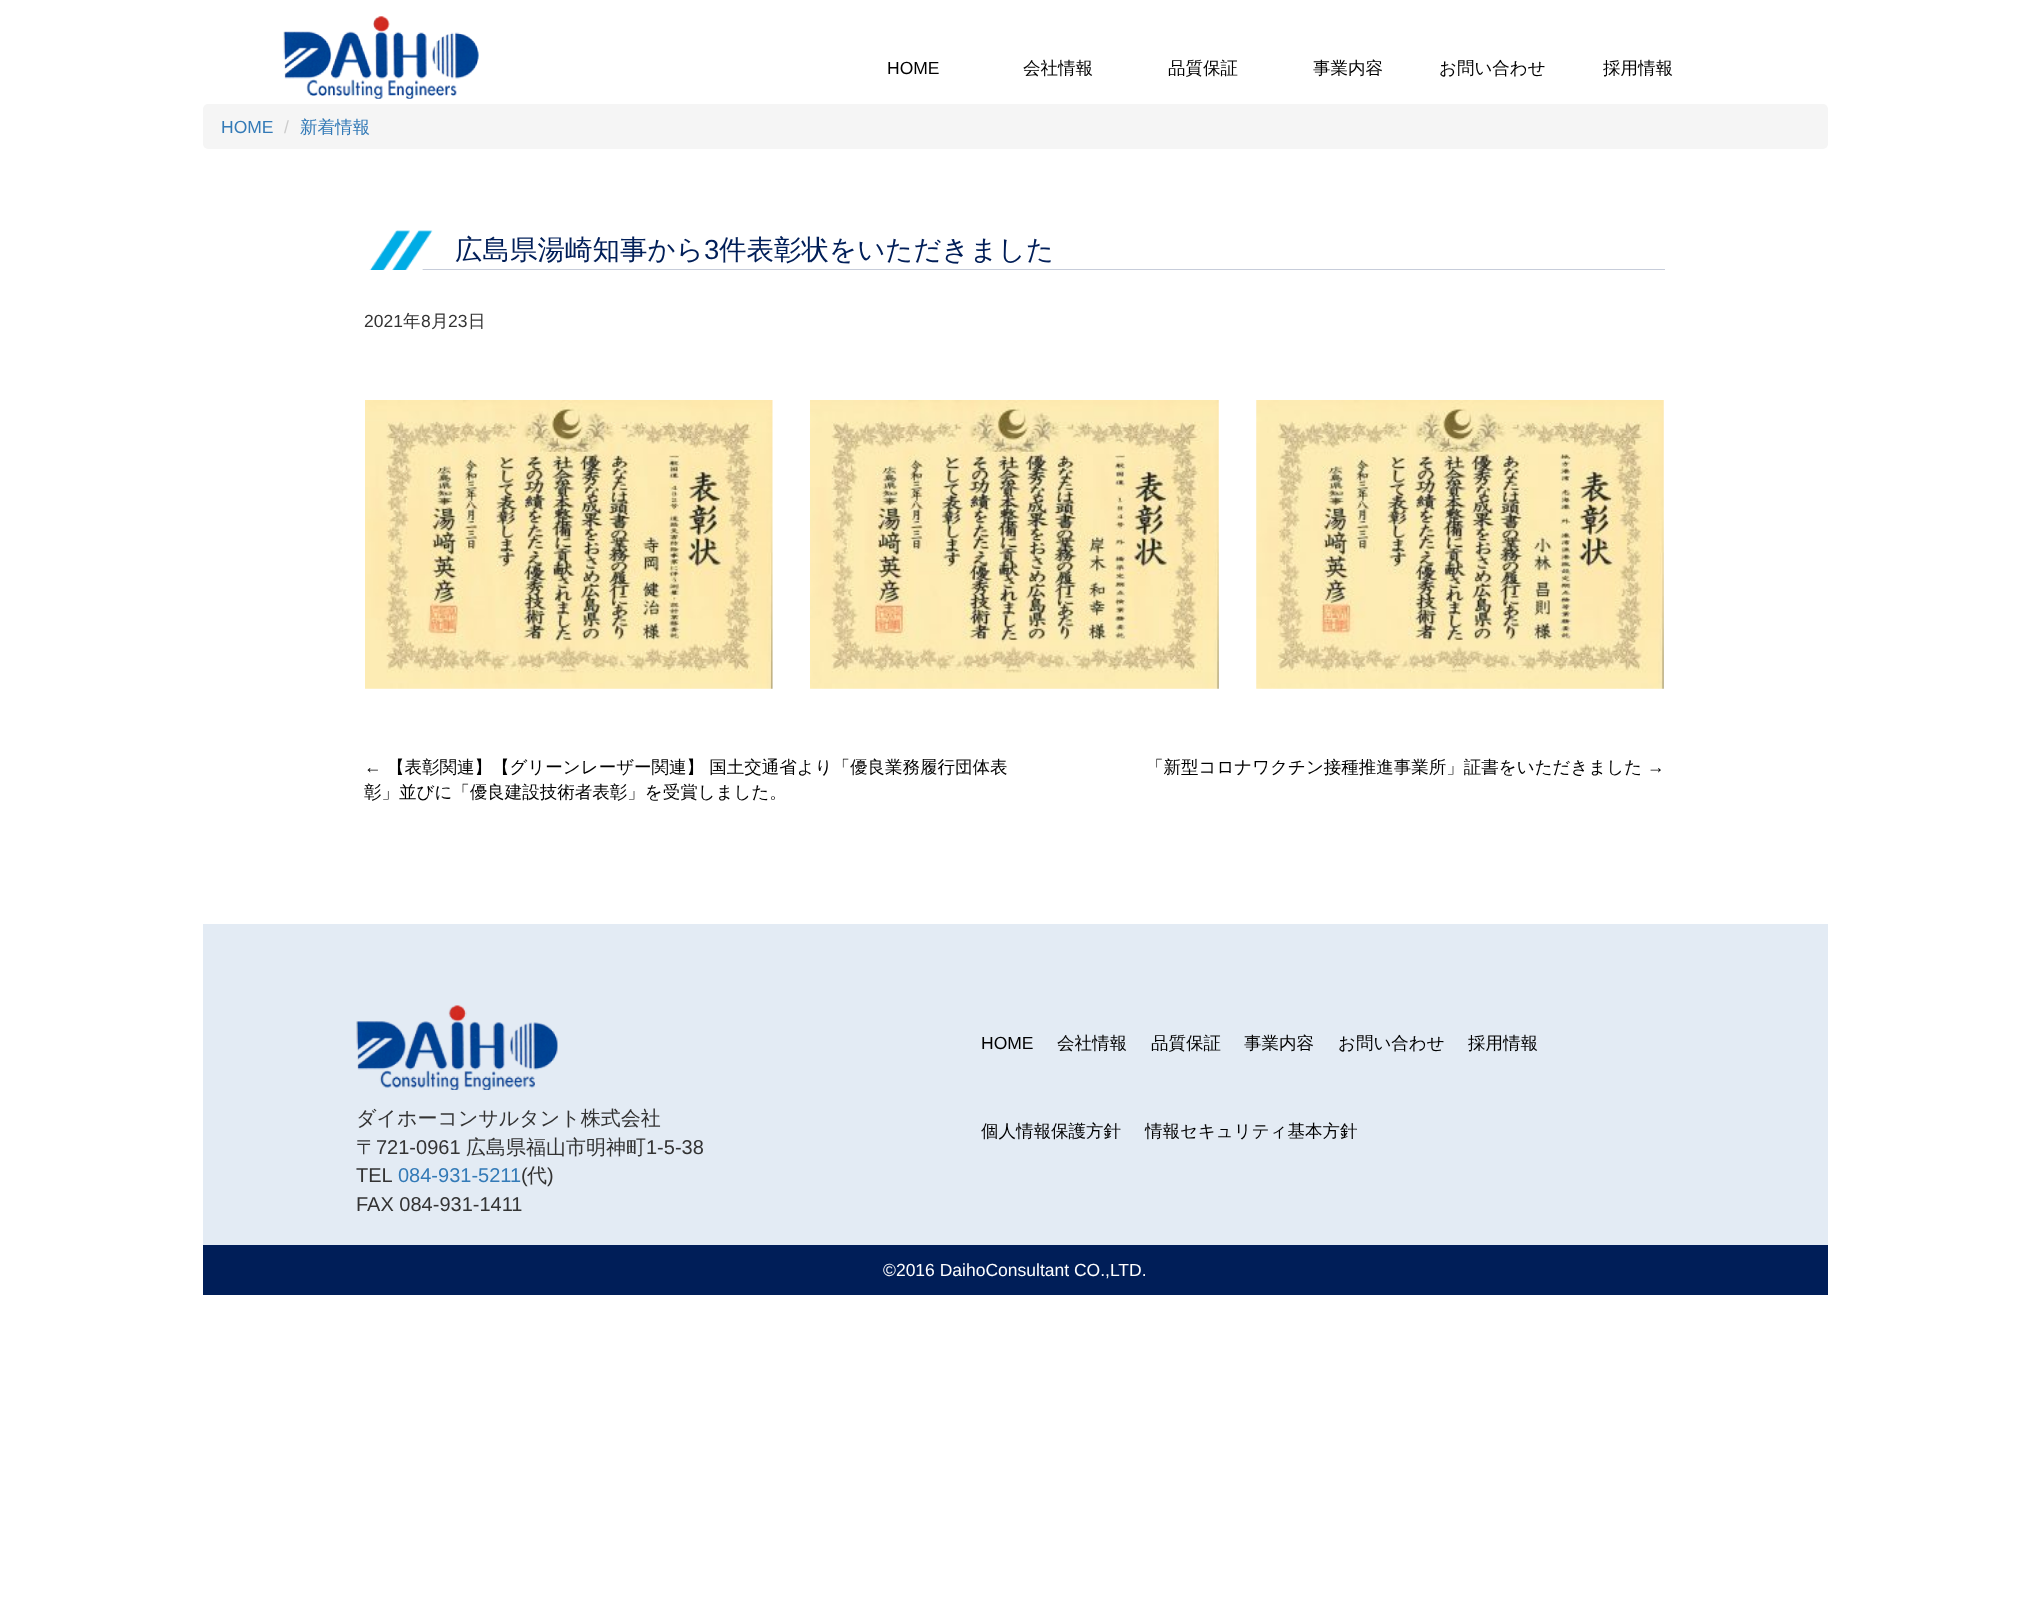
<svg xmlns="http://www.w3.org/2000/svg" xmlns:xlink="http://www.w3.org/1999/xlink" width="2028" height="1600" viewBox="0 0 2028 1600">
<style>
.cls-1{font:17.5px Liberation Sans;fill:#000000}
.cls-2{font:500 17.5px WenQuanYi Zen Hei;fill:#000000}
.cls-3{font:17.5px Liberation Sans;fill:#337ab7}
.cls-4{font:17.5px Liberation Sans;fill:#cccccc}
.cls-5{font:500 17.5px WenQuanYi Zen Hei;fill:#337ab7}
.cls-6{font:500 27.5px WenQuanYi Zen Hei;fill:#001e58}
.cls-7{font:27.5px Liberation Sans;fill:#001e58}
.cls-8{font:17.5px Liberation Sans;fill:#333333}
.cls-9{font:500 17.5px WenQuanYi Zen Hei;fill:#333333}
.cls-10{font:500 20px WenQuanYi Zen Hei;fill:#333333}
.cls-11{font:20px Liberation Sans;fill:#333333}
.cls-12{font:20px Liberation Sans;fill:#337ab7}
.cls-13{font:17.5px Liberation Sans;fill:#ffffff}
</style>
<rect width="100%" height="100%" fill="#ffffff"/>
<image xlink:href="image0.png" x="283" y="16" width="196" height="83"/>
<rect fill="#f5f5f5" x="203" y="104" width="1625" height="45" rx="5"/>
<image xlink:href="image1.png" x="369" y="230" width="1296" height="40"/>
<image xlink:href="image2.png" x="365" y="400" width="408" height="289"/>
<image xlink:href="image3.png" x="810" y="400" width="409" height="289"/>
<image xlink:href="image4.png" x="1256" y="400" width="408" height="289"/>
<rect fill="#e3ebf4" x="203" y="924" width="1625" height="321"/>
<image xlink:href="image5.png" x="356" y="1005" width="202" height="85"/>
<rect fill="#001e58" x="203" y="1245" width="1625" height="50"/>
<text class="cls-1" x="887" y="74">HOME</text>
<text class="cls-2" x="1023" y="74">会社情報</text>
<text class="cls-2" x="1168" y="74">品質保証</text>
<text class="cls-2" x="1313" y="74">事業内容</text>
<text class="cls-2" x="1439" y="74">お問い合わせ</text>
<text class="cls-2" x="1603" y="74">採用情報</text>
<text class="cls-3" x="221" y="133">HOME</text>
<text class="cls-4" x="284" y="133">/</text>
<text class="cls-5" x="300" y="133">新着情報</text>
<text class="cls-6" x="455" y="259">広島県湯崎知事から</text>
<text class="cls-7" x="704" y="259">3</text>
<text class="cls-6" x="719" y="259">件表彰状をいただきました</text>
<text class="cls-8" x="364" y="327">2021</text>
<text class="cls-9" x="403" y="327">年</text>
<text class="cls-8" x="421" y="327">8</text>
<text class="cls-9" x="431" y="327">月</text>
<text class="cls-8" x="448" y="327">23</text>
<text class="cls-9" x="468" y="327">日</text>
<text class="cls-1" x="364" y="773">←</text>
<text class="cls-2" x="387" y="773">【表彰関連】【グリーンレーザー関連】 国土交通省より「優良業務履行団体表</text>
<text class="cls-2" x="364" y="798">彰」並びに「優良建設技術者表彰」を受賞しました。</text>
<text class="cls-2" x="1146" y="773">「新型コロナワクチン接種推進事業所」証書をいただきました</text>
<text class="cls-1" x="1647" y="773">→</text>
<text class="cls-1" x="981" y="1049">HOME</text>
<text class="cls-2" x="1057" y="1049">会社情報</text>
<text class="cls-2" x="1151" y="1049">品質保証</text>
<text class="cls-2" x="1244" y="1049">事業内容</text>
<text class="cls-2" x="1338" y="1049">お問い合わせ</text>
<text class="cls-2" x="1468" y="1049">採用情報</text>
<text class="cls-10"><tspan x="356" y="1125">ダイホーコンサルタント株式会社</tspan><tspan x="356" y="1154">〒</tspan></text>
<text class="cls-11" x="376" y="1154">721-0961</text>
<text class="cls-10" x="466" y="1154">広島県福山市明神町</text>
<text class="cls-11" x="646" y="1154">1-5-38</text>
<text class="cls-11" x="356" y="1182">TEL</text>
<text class="cls-12" x="398" y="1182">084-931-5211</text>
<text class="cls-11" x="521" y="1182">(</text>
<text class="cls-10" x="527" y="1182">代</text>
<text class="cls-11" x="547" y="1182">)</text>
<text class="cls-11" x="356" y="1211">FAX 084-931-1411</text>
<text class="cls-2" x="981" y="1137">個人情報保護方針</text>
<text class="cls-2" x="1145" y="1137">情報セキュリティ基本方針</text>
<text class="cls-13" x="883" y="1276">©2016 DaihoConsultant CO.,LTD.</text>
</svg>
